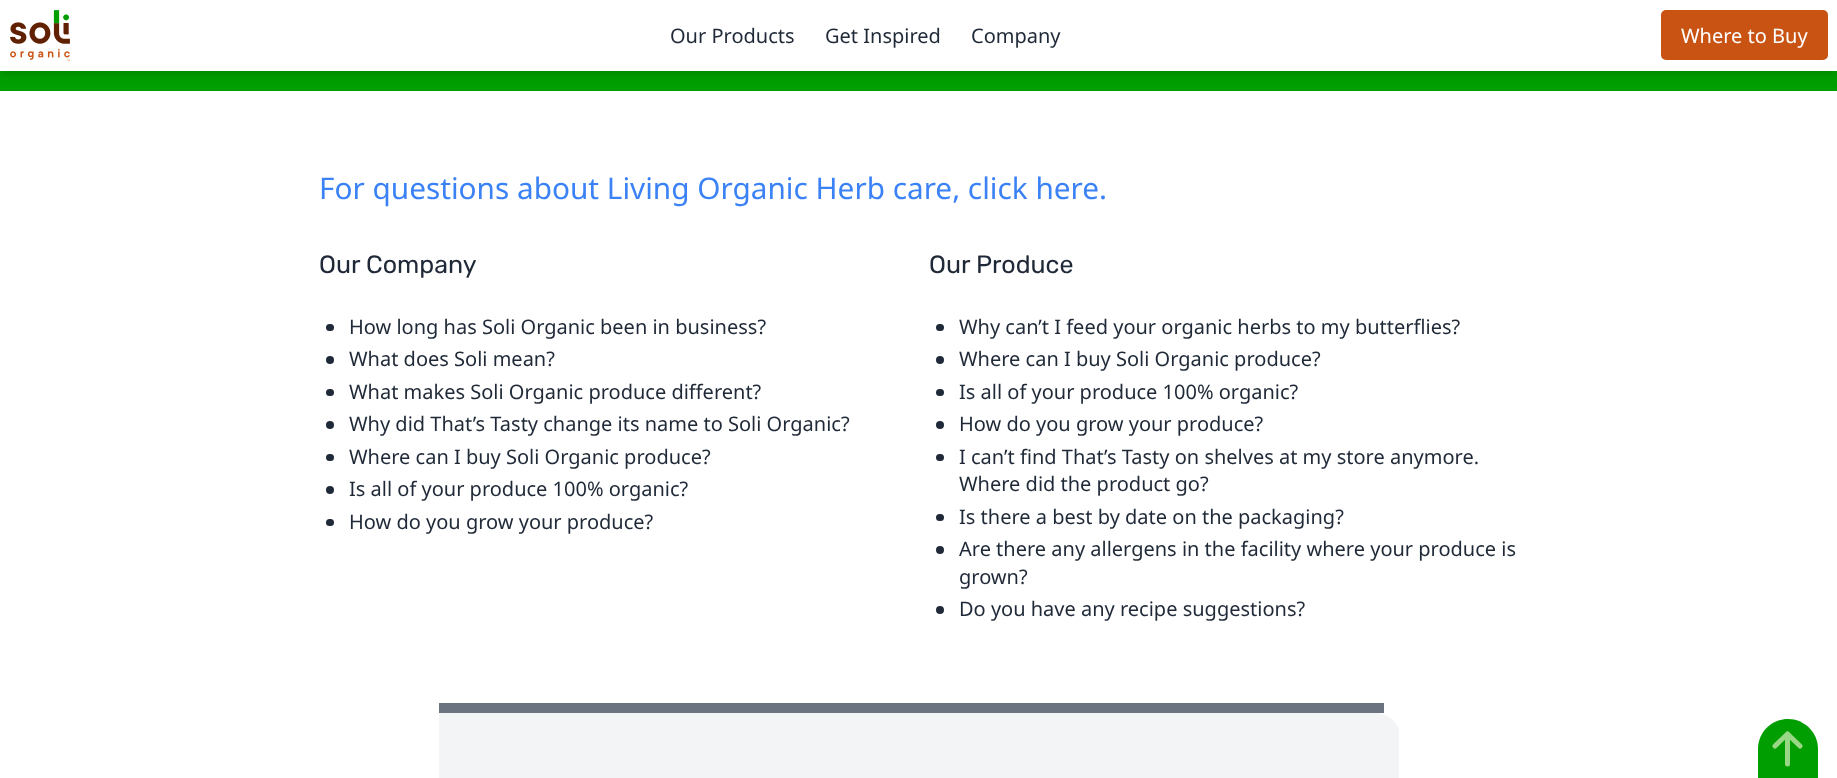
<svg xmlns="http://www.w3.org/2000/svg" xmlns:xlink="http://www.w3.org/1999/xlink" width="1837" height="778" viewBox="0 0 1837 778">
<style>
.cls-1{font:20px Noto Sans;fill:#1f2937}
.cls-2{font:20px Noto Sans;fill:#ffffff}
.cls-3{font:29.75px Noto Sans;fill:#3b82f6}
.cls-4{font:25px Rubik;fill:#1f2937}
</style>
<rect width="100%" height="100%" fill="#ffffff"/>
<rect fill="#009e00" x="0" y="71" width="1837" height="20"/>
<rect fill="#000000" fill-opacity="0.1" filter="blur(2.5px)" x="3" y="5" width="1832" height="66"/>
<rect fill="#000000" fill-opacity="0.1" filter="blur(4px)" x="1" y="6" width="1835" height="69"/>
<rect fill="#ffffff" x="0" y="0" width="1837" height="71"/>
<image xlink:href="image0.png" x="10" y="10" width="60" height="51"/>
<rect fill="#c85313" x="1661" y="10" width="167" height="50" rx="5"/>
<rect fill="#1f2937" x="326" y="324" width="8" height="7" rx="3.5"/>
<circle fill="#1f2937" cx="330" cy="360" r="4"/>
<rect fill="#1f2937" x="326" y="389" width="8" height="7" rx="3.5"/>
<circle fill="#1f2937" cx="330" cy="425" r="4"/>
<rect fill="#1f2937" x="326" y="454" width="8" height="7" rx="3.5"/>
<circle fill="#1f2937" cx="330" cy="490" r="4"/>
<rect fill="#1f2937" x="326" y="519" width="8" height="7" rx="3.5"/>
<rect fill="#1f2937" x="936" y="324" width="8" height="7" rx="3.5"/>
<circle fill="#1f2937" cx="940" cy="360" r="4"/>
<rect fill="#1f2937" x="936" y="389" width="8" height="7" rx="3.5"/>
<circle fill="#1f2937" cx="940" cy="425" r="4"/>
<rect fill="#1f2937" x="936" y="454" width="8" height="7" rx="3.5"/>
<rect fill="#1f2937" x="936" y="514" width="8" height="7" rx="3.5"/>
<circle fill="#1f2937" cx="940" cy="550" r="4"/>
<circle fill="#1f2937" cx="940" cy="610" r="4"/>
<path fill="#f3f4f6" d="M439 712H1369C1385 712 1399 721 1399 732V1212H469C452 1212 439 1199 439 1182Z"/>
<rect fill="#6b7280" x="439" y="703" width="945" height="10"/>
<path fill="#009e00" d="M1788 719C1804.5 719 1818 732.5 1818 749V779H1758V749C1758 732.5 1771.5 719 1788 719Z"/>
<path fill="none" stroke="#98d785" stroke-width="5" stroke-linecap="round" stroke-linejoin="round" d="M1775 746L1787.5 734M1787.5 734L1800 746M1787.5 734V764"/>
<text class="cls-1" x="670" y="43">Our Products</text>
<text class="cls-1" x="825" y="43">Get Inspired</text>
<text class="cls-1" x="971" y="43">Company</text>
<text class="cls-2" x="1681" y="43">Where to Buy</text>
<text class="cls-3" x="319" y="199">For questions about Living Organic Herb care, click here.</text>
<text class="cls-4" x="319" y="273">Our Company</text>
<text class="cls-1"><tspan x="349" y="334">How long has Soli Organic been in business?</tspan><tspan x="349" y="366">What does Soli mean?</tspan><tspan x="349" y="399">What makes Soli Organic produce different?</tspan><tspan x="349" y="431">Why did That’s Tasty change its name to Soli Organic?</tspan><tspan x="349" y="464">Where can I buy Soli Organic produce?</tspan><tspan x="349" y="496">Is all of your produce 100% organic?</tspan><tspan x="349" y="529">How do you grow your produce?</tspan></text>
<text class="cls-4" x="929" y="273">Our Produce</text>
<text class="cls-1"><tspan x="959" y="334">Why can’t I feed your organic herbs to my butterflies?</tspan><tspan x="959" y="366">Where can I buy Soli Organic produce?</tspan><tspan x="959" y="399">Is all of your produce 100% organic?</tspan><tspan x="959" y="431">How do you grow your produce?</tspan><tspan x="959" y="464">I can’t find That’s Tasty on shelves at my store anymore.</tspan><tspan x="959" y="491">Where did the product go?</tspan><tspan x="959" y="524">Is there a best by date on the packaging?</tspan><tspan x="959" y="556">Are there any allergens in the facility where your produce is</tspan><tspan x="959" y="584">grown?</tspan><tspan x="959" y="616">Do you have any recipe suggestions?</tspan></text>
</svg>
